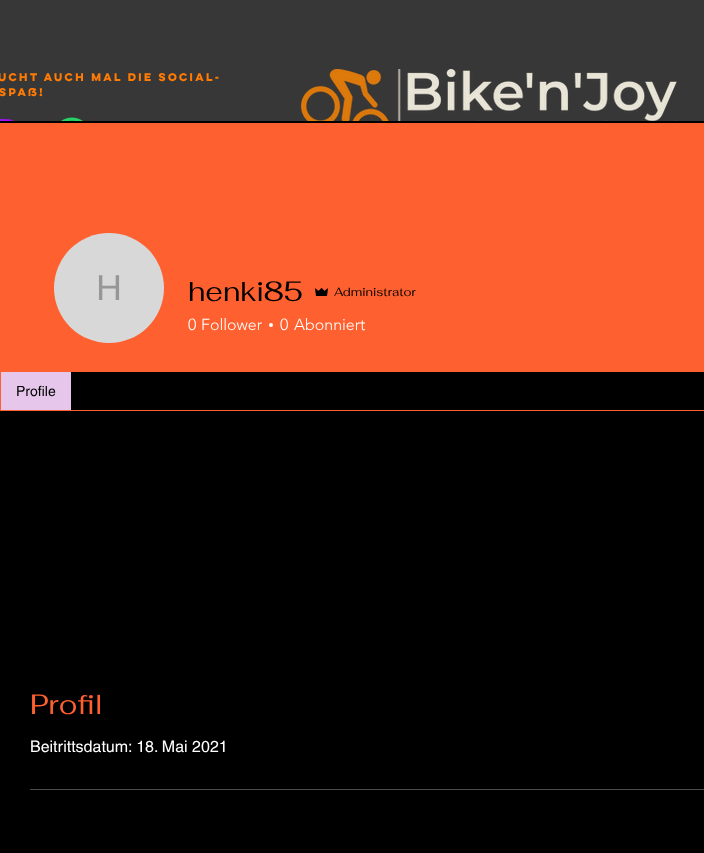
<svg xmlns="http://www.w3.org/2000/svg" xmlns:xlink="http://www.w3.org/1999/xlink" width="704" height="853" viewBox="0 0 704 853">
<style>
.cls-1{font:bold 10px 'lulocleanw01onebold';letter-spacing:0.1px;fill:#ff7b04}
.cls-2{font:36px Liberation Sans;fill:#979797}
.cls-3{font:28px Fahkwang;fill:#000000}
.cls-4{font:12px Fahkwang;fill:#000000}
.cls-5{font:300 16px 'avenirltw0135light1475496';fill:#ffffff}
.cls-6{font:14px helvetica;fill:#000000}
.cls-7{font:28px Fahkwang;fill:#fe602f}
.cls-8{font:16px helvetica;fill:#ffffff}
</style>
<rect width="100%" height="100%" fill="#000000"/>
<rect fill="#373737" x="0" y="0" width="704" height="121"/>
<image xlink:href="image0.png" x="300" y="69" width="377" height="52"/>
<image xlink:href="image1.png" x="0" y="118" width="14" height="3"/>
<image xlink:href="image2.png" x="61" y="117" width="22" height="4"/>
<rect fill="#fe602f" x="0" y="123" width="704" height="248"/>
<circle fill="#d8d8d8" cx="109" cy="288" r="55"/>
<image xlink:href="image3.png" x="315" y="288" width="13" height="8"/>
<circle fill="#ffffff" cx="271" cy="325" r="2"/>
<rect fill="none" stroke="#fe602f" x="0.5" y="371.5" width="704" height="39"/>
<rect fill="#e6c7eb" x="1" y="372" width="70" height="38"/>
<rect fill="#4d4d4d" x="30" y="789" width="674" height="1"/>
<text class="cls-1" x="-2" y="81">ucht auch mal die Social-</text>
<text class="cls-1" x="-1" y="96">Spaß!</text>
<text class="cls-2" x="96" y="300">H</text>
<text class="cls-3" x="188" y="301">henki85</text>
<text class="cls-4" x="334" y="296">Administrator</text>
<text class="cls-5" x="188" y="330">0</text>
<text class="cls-5" x="201" y="330">Follower</text>
<text class="cls-5" x="280" y="330">0</text>
<text class="cls-5" x="294" y="330">Abonniert</text>
<text class="cls-6" x="16" y="396">Profile</text>
<text class="cls-7" x="30" y="714">Profil</text>
<text class="cls-8" x="30" y="752">Beitrittsdatum: 18. Mai 2021</text>
</svg>
